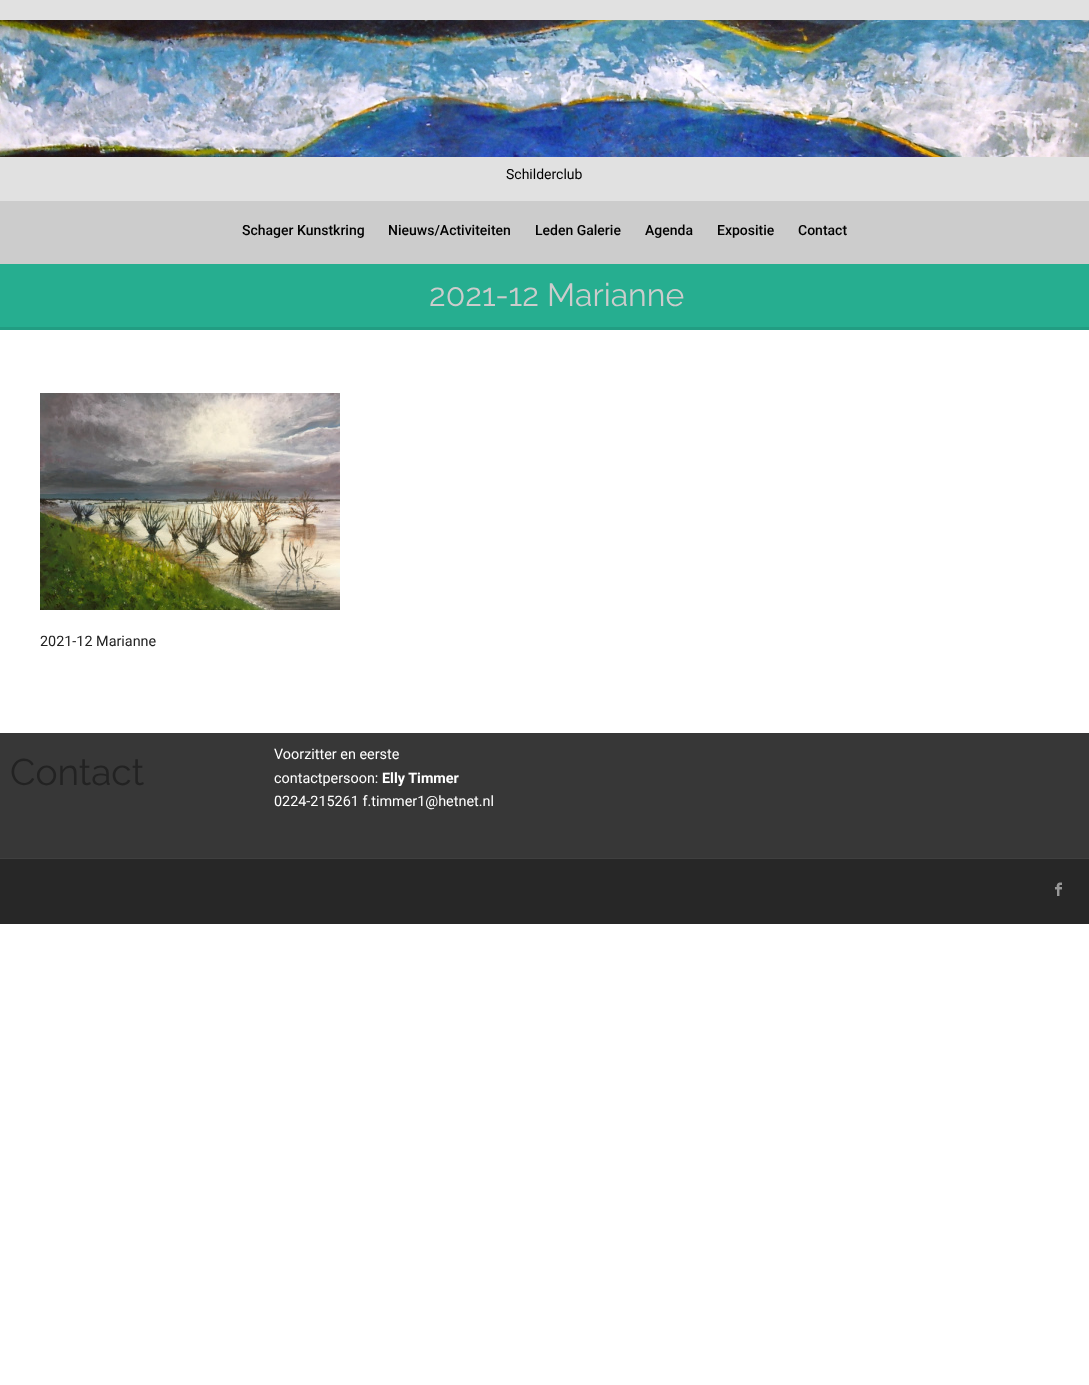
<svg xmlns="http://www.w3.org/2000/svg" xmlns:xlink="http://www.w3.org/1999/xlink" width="1089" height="1385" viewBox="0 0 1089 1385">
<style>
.cls-1{font:14px Roboto;fill:#000000}
.cls-2{font:500 14px Roboto;fill:#000000}
.cls-3{font:32px Raleway;fill:#cccccc}
.cls-4{font:14.4px Roboto;fill:#222222}
.cls-5{font:37px Raleway;fill:#222222}
.cls-6{font:14.4px Roboto;fill:#ffffff}
.cls-7{font:bold 14.4px Roboto;fill:#ffffff}
</style>
<rect width="100%" height="100%" fill="#ffffff"/>
<rect fill="#e1e1e1" x="0" y="0" width="1089" height="201"/>
<image xlink:href="image0.png" x="0" y="20" width="1089" height="137"/>
<rect fill="#cccccc" x="0" y="201" width="1089" height="63"/>
<rect fill="#26ae90" x="0" y="264" width="1089" height="63"/>
<rect fill="#229d82" x="0" y="327" width="1089" height="3"/>
<image xlink:href="image1.png" x="40" y="393" width="300" height="217"/>
<rect fill="#373737" x="0" y="733" width="1089" height="125"/>
<rect fill="#3f3f3f" x="0" y="858" width="1089" height="1"/>
<rect fill="#272727" x="0" y="859" width="1089" height="65"/>
<image xlink:href="image2.png" x="1054" y="882" width="8" height="14"/>
<text class="cls-1" x="506" y="179">Schilderclub</text>
<text class="cls-2" x="242" y="235">Schager Kunstkring</text>
<text class="cls-2" x="388" y="235">Nieuws/Activiteiten</text>
<text class="cls-2" x="535" y="235">Leden Galerie</text>
<text class="cls-2" x="645" y="235">Agenda</text>
<text class="cls-2" x="717" y="235">Expositie</text>
<text class="cls-2" x="798" y="235">Contact</text>
<text class="cls-3" x="429" y="306">2021-12 Marianne</text>
<text class="cls-4" x="40" y="646">2021-12 Marianne</text>
<text class="cls-5" x="10" y="785">Contact</text>
<text class="cls-6"><tspan x="274" y="759">Voorzitter en eerste</tspan><tspan x="274" y="783">contactpersoon:</tspan></text>
<text class="cls-7" x="382" y="783">Elly Timmer</text>
<text class="cls-6" x="274" y="806">0224-215261 f.timmer1@hetnet.nl</text>
</svg>
